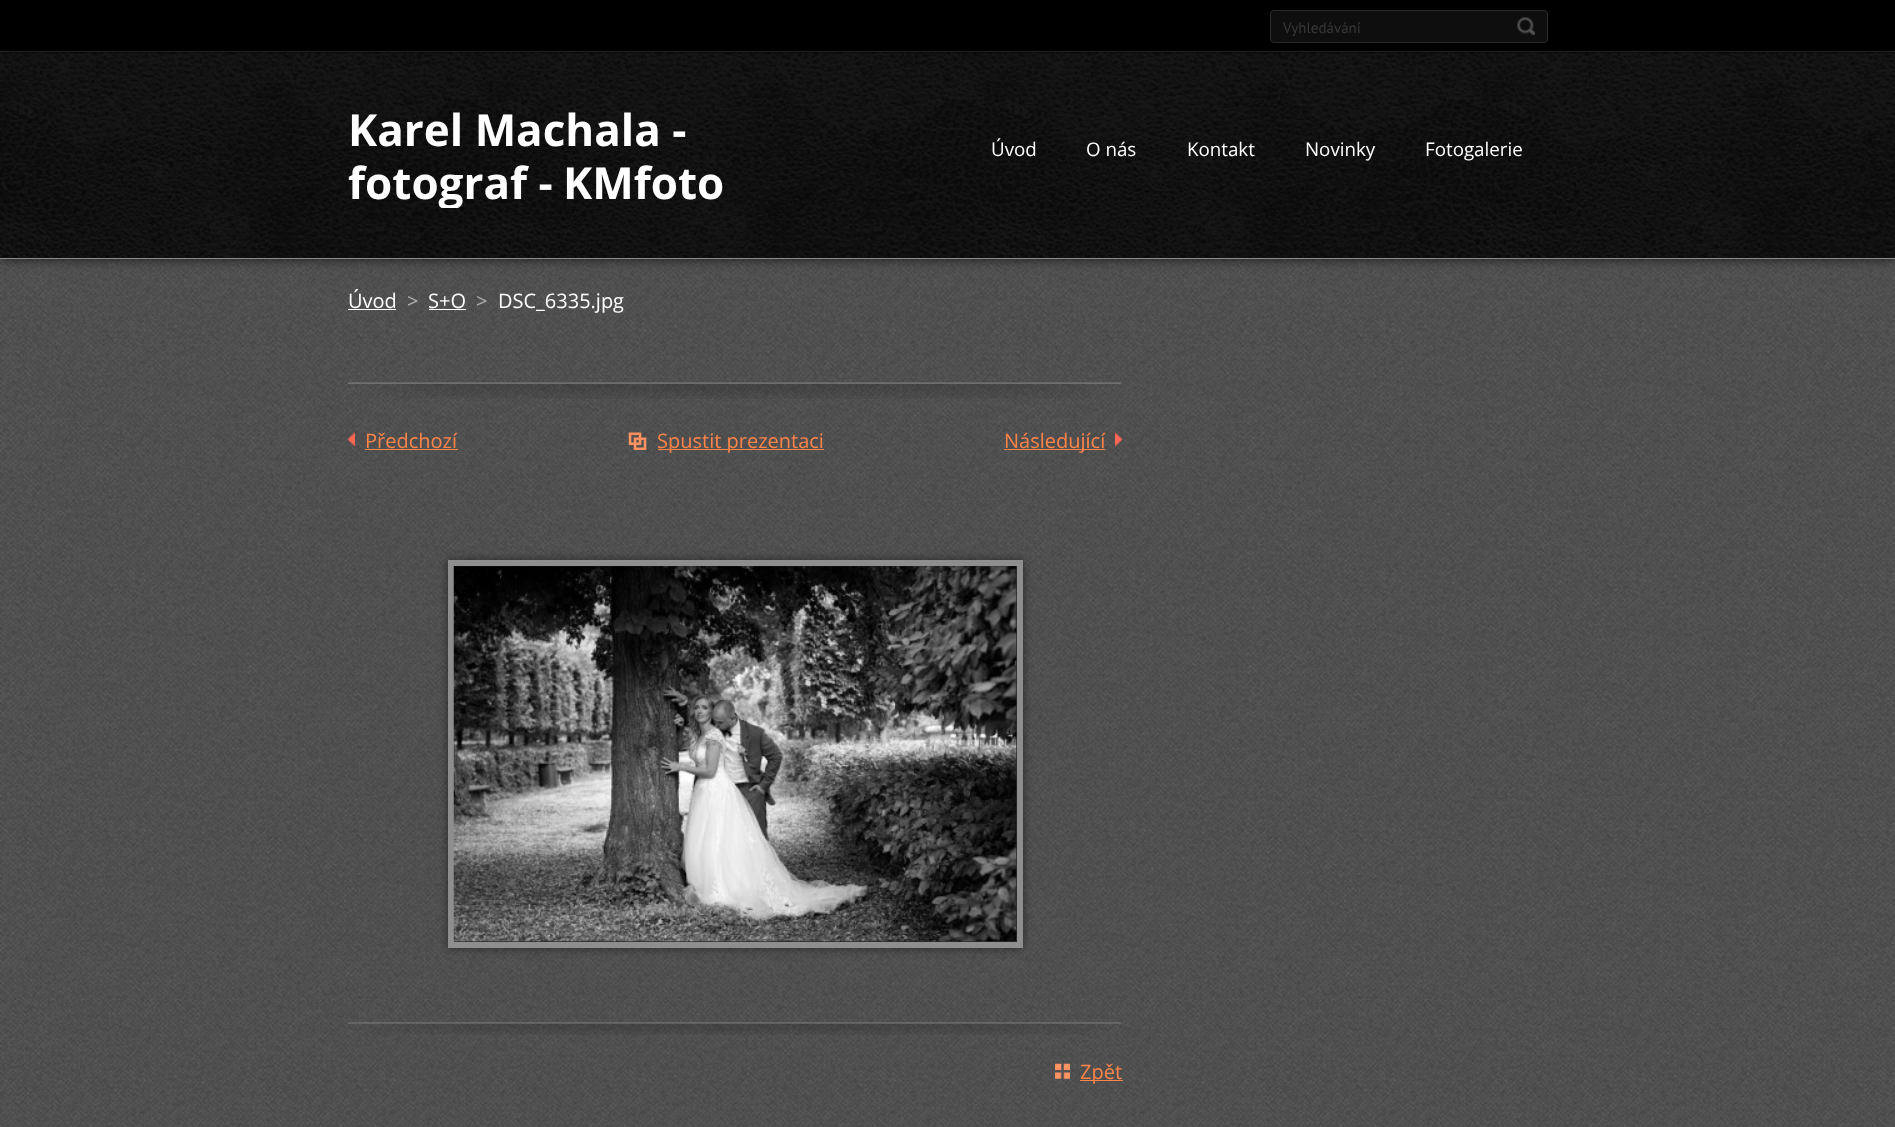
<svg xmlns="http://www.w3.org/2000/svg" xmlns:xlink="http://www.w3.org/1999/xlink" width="1895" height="1127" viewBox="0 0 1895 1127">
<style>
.cls-1{font:15px PT Sans;fill:#383838}
.cls-2{font:bold 44px Open Sans;fill:#ffffff}
.cls-3{font:18.75px Open Sans;fill:#ffffff}
.cls-4{font:20px Open Sans;fill:#ffffff}
.cls-5{font:20px Open Sans;fill:#b3b3b3}
.cls-6{font:20px Open Sans;fill:#ff844a}
</style>
<defs>
<clipPath id="clip1"><rect x="348" y="103" width="420" height="105"/></clipPath>
</defs>
<rect width="100%" height="100%" fill="#ffffff"/>
<image xlink:href="image0.png" x="0" y="259" width="1895" height="868"/>
<rect fill="#000000" x="0" y="0" width="1895" height="53"/>
<rect fill="#303030" x="0" y="51" width="1895" height="1"/>
<rect fill="#000000" fill-opacity="0.7" filter="blur(6px)" x="0" y="53" width="1895" height="206"/>
<rect fill="#0e0e0e" stroke="#292929" x="1270.5" y="10.5" width="277" height="32" rx="3.5"/>
<image xlink:href="image1.png" x="1517" y="17" width="19" height="19"/>
<image xlink:href="image2.png" x="0" y="52" width="1895" height="206"/>
<rect fill="#8a8a8a" x="0" y="258" width="1895" height="1"/>
<rect fill="#ffffff" x="348" y="309" width="48" height="1"/>
<rect fill="#ffffff" x="429" y="309" width="37" height="1"/>
<image xlink:href="image3.png" x="347" y="382" width="775" height="17"/>
<image xlink:href="image4.png" x="347" y="432" width="8" height="15"/>
<rect fill="#ff844a" x="365" y="449" width="93" height="1"/>
<image xlink:href="image5.png" x="628" y="432" width="19" height="18"/>
<rect fill="#ff844a" x="658" y="449" width="166" height="1"/>
<image xlink:href="image6.png" x="1115" y="432" width="8" height="15"/>
<rect fill="#ff844a" x="1004" y="449" width="101" height="1"/>
<image xlink:href="image7.png" x="347" y="1022" width="775" height="13"/>
<rect fill="#000000" fill-opacity="0.5" filter="blur(5px)" x="448" y="560" width="575" height="388"/>
<rect fill="none" stroke="#8e8e8e" stroke-width="6" x="451" y="563" width="569" height="382"/>
<image xlink:href="image8.png" x="453" y="566" width="564" height="376"/>
<image xlink:href="image9.png" x="1055" y="1063" width="15" height="16"/>
<rect fill="#ff844a" x="1080" y="1080" width="43" height="1"/>
<text class="cls-1" x="1283" y="33">Vyhledávání</text>
<text class="cls-2" x="348" y="146">Karel Machala -</text>
<g clip-path="url(#clip1)">
<text class="cls-2" x="348" y="199">fotograf -</text>
</g>
<text class="cls-2" x="563" y="199">KMfoto</text>
<text class="cls-3" x="991" y="156">Úvod</text>
<text class="cls-3" x="1086" y="156">O nás</text>
<text class="cls-3" x="1187" y="156">Kontakt</text>
<text class="cls-3" x="1305" y="156">Novinky</text>
<text class="cls-3" x="1425" y="156">Fotogalerie</text>
<text class="cls-4" x="348" y="308">Úvod</text>
<text class="cls-5" x="407" y="308">&gt;</text>
<text class="cls-4" x="428" y="308">S+O</text>
<text class="cls-5" x="476" y="308">&gt;</text>
<text class="cls-4" x="498" y="308">DSC_6335.jpg</text>
<text class="cls-6" x="365" y="448">Předchozí</text>
<text class="cls-6" x="657" y="448">Spustit prezentaci</text>
<text class="cls-6" x="1004" y="448">Následující</text>
<text class="cls-6" x="1080" y="1079">Zpět</text>
</svg>
